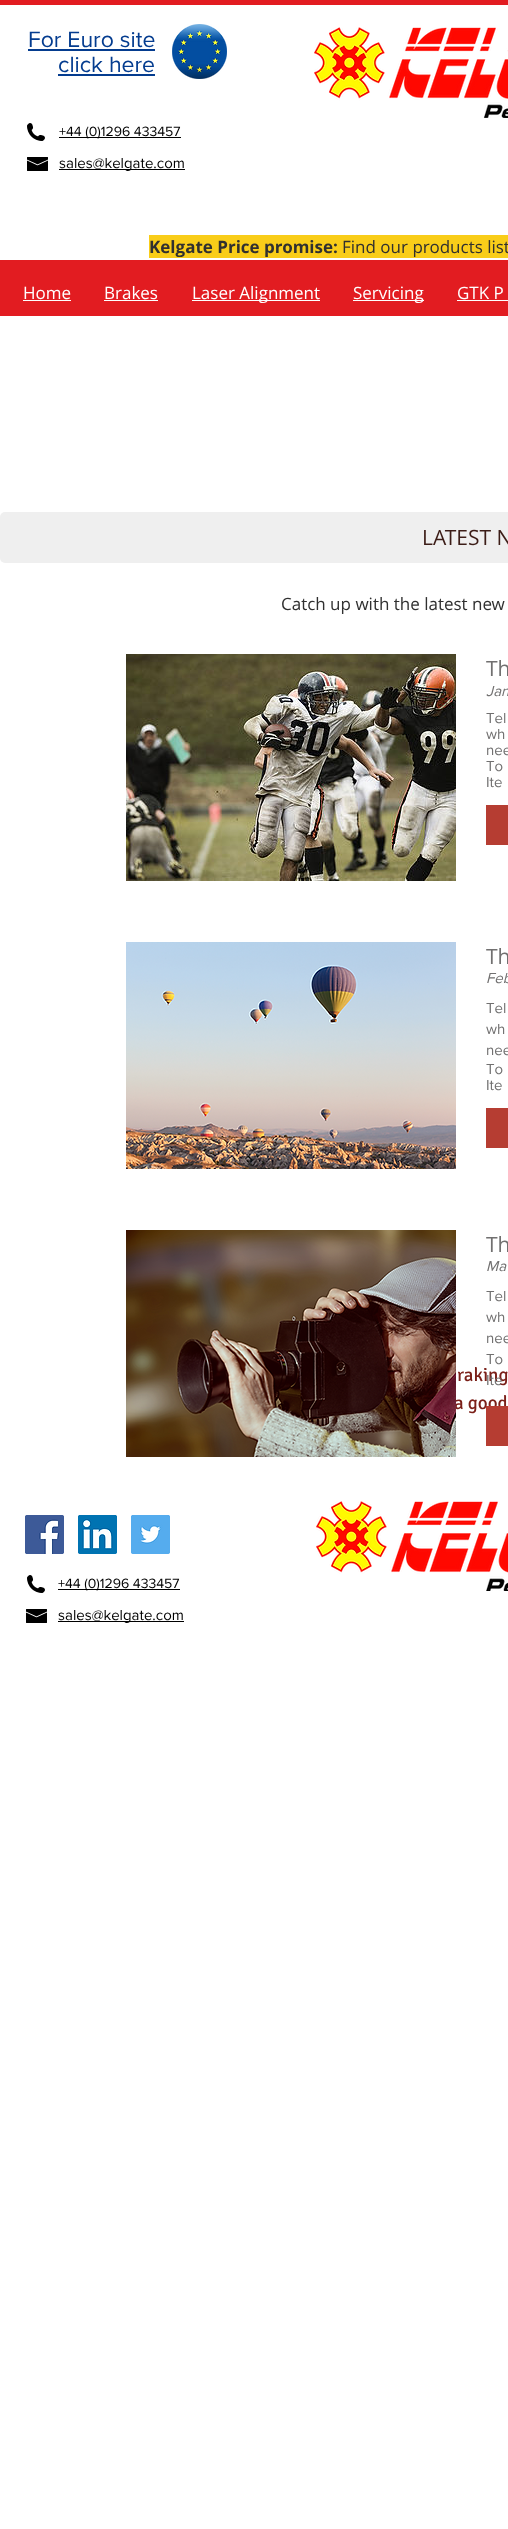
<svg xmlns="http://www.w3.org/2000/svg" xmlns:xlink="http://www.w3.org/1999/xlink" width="508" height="2529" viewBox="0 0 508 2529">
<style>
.cls-1{font:23px 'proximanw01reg';fill:#043c8f}
.cls-2{font:14px 'proximanw01reg';fill:#000000}
.cls-3{font:15px 'proximanw01reg';fill:#000000}
.cls-4{font:bold 17px Open Sans;fill:#303030}
.cls-5{font:17px Open Sans;fill:#303030}
.cls-6{font:17px 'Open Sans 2';fill:#ffffff}
.cls-7{font:21px Open Sans;fill:#3c1d17}
.cls-8{font:21px Open Sans;fill:#717070}
.cls-9{font:italic 15px 'proximanw01reg';fill:#717070}
.cls-10{font:15px 'proximanw01reg';fill:#717070}
.cls-11{font:19px Signika;fill:#7b2019}
</style>
<rect width="100%" height="100%" fill="#ffffff"/>
<rect fill="#e21c21" x="0" y="0" width="508" height="5"/>
<rect fill="#e21c21" x="0" y="260" width="508" height="56"/>
<rect fill="#043c8f" x="28" y="49" width="127" height="2"/>
<rect fill="#043c8f" x="58" y="74" width="97" height="2"/>
<image xlink:href="image0.png" x="172" y="24" width="55" height="55"/>
<image xlink:href="image1.png" x="27" y="123" width="18" height="18"/>
<rect fill="#000000" x="59" y="137" width="122" height="1"/>
<image xlink:href="image2.png" x="27" y="157" width="21" height="14"/>
<rect fill="#000000" x="59" y="169" width="126" height="1"/>
<image xlink:href="image3.png" x="314" y="27" width="194" height="91"/>
<rect fill="#f9cd19" x="149" y="235" width="359" height="23"/>
<rect fill="#ffffff" x="23" y="300" width="48" height="1"/>
<rect fill="#ffffff" x="104" y="300" width="54" height="1"/>
<rect fill="#ffffff" x="192" y="300" width="128" height="1"/>
<rect fill="#ffffff" x="353" y="300" width="71" height="1"/>
<rect fill="#ffffff" x="457" y="300" width="51" height="1"/>
<rect fill="#efefef" x="0" y="512" width="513" height="51" rx="5"/>
<image xlink:href="image4.png" x="126" y="654" width="330" height="227"/>
<rect fill="#b63d32" x="486" y="805" width="22" height="40"/>
<image xlink:href="image5.png" x="126" y="942" width="330" height="227"/>
<rect fill="#b63d32" x="486" y="1108" width="22" height="40"/>
<image xlink:href="image7.png" x="316" y="1501" width="192" height="90"/>
<image xlink:href="image8.png" x="25" y="1515" width="39" height="39"/>
<image xlink:href="image9.png" x="78" y="1515" width="39" height="39"/>
<image xlink:href="image10.png" x="131" y="1515" width="39" height="39"/>
<image xlink:href="image1.png" x="27" y="1575" width="18" height="18"/>
<rect fill="#000000" x="58" y="1589" width="122" height="1"/>
<image xlink:href="image2.png" x="26" y="1609" width="21" height="14"/>
<rect fill="#000000" x="58" y="1621" width="126" height="1"/>
<text class="cls-1" x="28" y="47">For Euro site</text>
<text class="cls-1" x="58" y="72">click here</text>
<text class="cls-2" x="59" y="136">+44 (0)1296 433457</text>
<text class="cls-3" x="59" y="168">sales@kelgate.com</text>
<text class="cls-4" x="149" y="253">Kelgate Price promise:</text>
<text class="cls-5" x="342" y="253">Find our products list</text>
<text class="cls-6" x="23" y="299">Home</text>
<text class="cls-6" x="104" y="299">Brakes</text>
<text class="cls-6" x="192" y="299">Laser Alignment</text>
<text class="cls-6" x="353" y="299">Servicing</text>
<text class="cls-6" x="457" y="299">GTK P</text>
<text class="cls-7" x="422" y="545">LATEST N</text>
<text class="cls-5" x="281" y="610">Catch up with the latest new</text>
<text class="cls-8" x="486" y="676">Th</text>
<text class="cls-9" x="486" y="696">Jan</text>
<text class="cls-10"><tspan x="486" y="723">Tel</tspan><tspan x="486" y="739">wh</tspan><tspan x="486" y="755">nee</tspan><tspan x="486" y="771">To</tspan><tspan x="486" y="787">Ite</tspan></text>
<text class="cls-8" x="486" y="964">Th</text>
<text class="cls-9" x="486" y="983">Feb</text>
<text class="cls-10"><tspan x="486" y="1013">Tel</tspan><tspan x="486" y="1034">wh</tspan><tspan x="486" y="1055">nee</tspan><tspan x="486" y="1074">To</tspan><tspan x="486" y="1090">Ite</tspan></text>
<text class="cls-8" x="486" y="1252">Th</text>
<text class="cls-9" x="486" y="1271">Ma</text>
<text class="cls-10"><tspan x="486" y="1301">Tel</tspan><tspan x="486" y="1322">wh</tspan><tspan x="486" y="1343">nee</tspan><tspan x="486" y="1364">To</tspan></text>
<text class="cls-11" x="457" y="1381">raking</text>
<text class="cls-10" x="486" y="1385">Ite</text>
<text class="cls-11" x="454" y="1409">a good</text>
<rect fill="#b63d32" x="486" y="1406" width="22" height="40"/>
<image xlink:href="image6.png" x="126" y="1230" width="330" height="227"/>
<text class="cls-2" x="58" y="1588">+44 (0)1296 433457</text>
<text class="cls-3" x="58" y="1620">sales@kelgate.com</text>
</svg>
